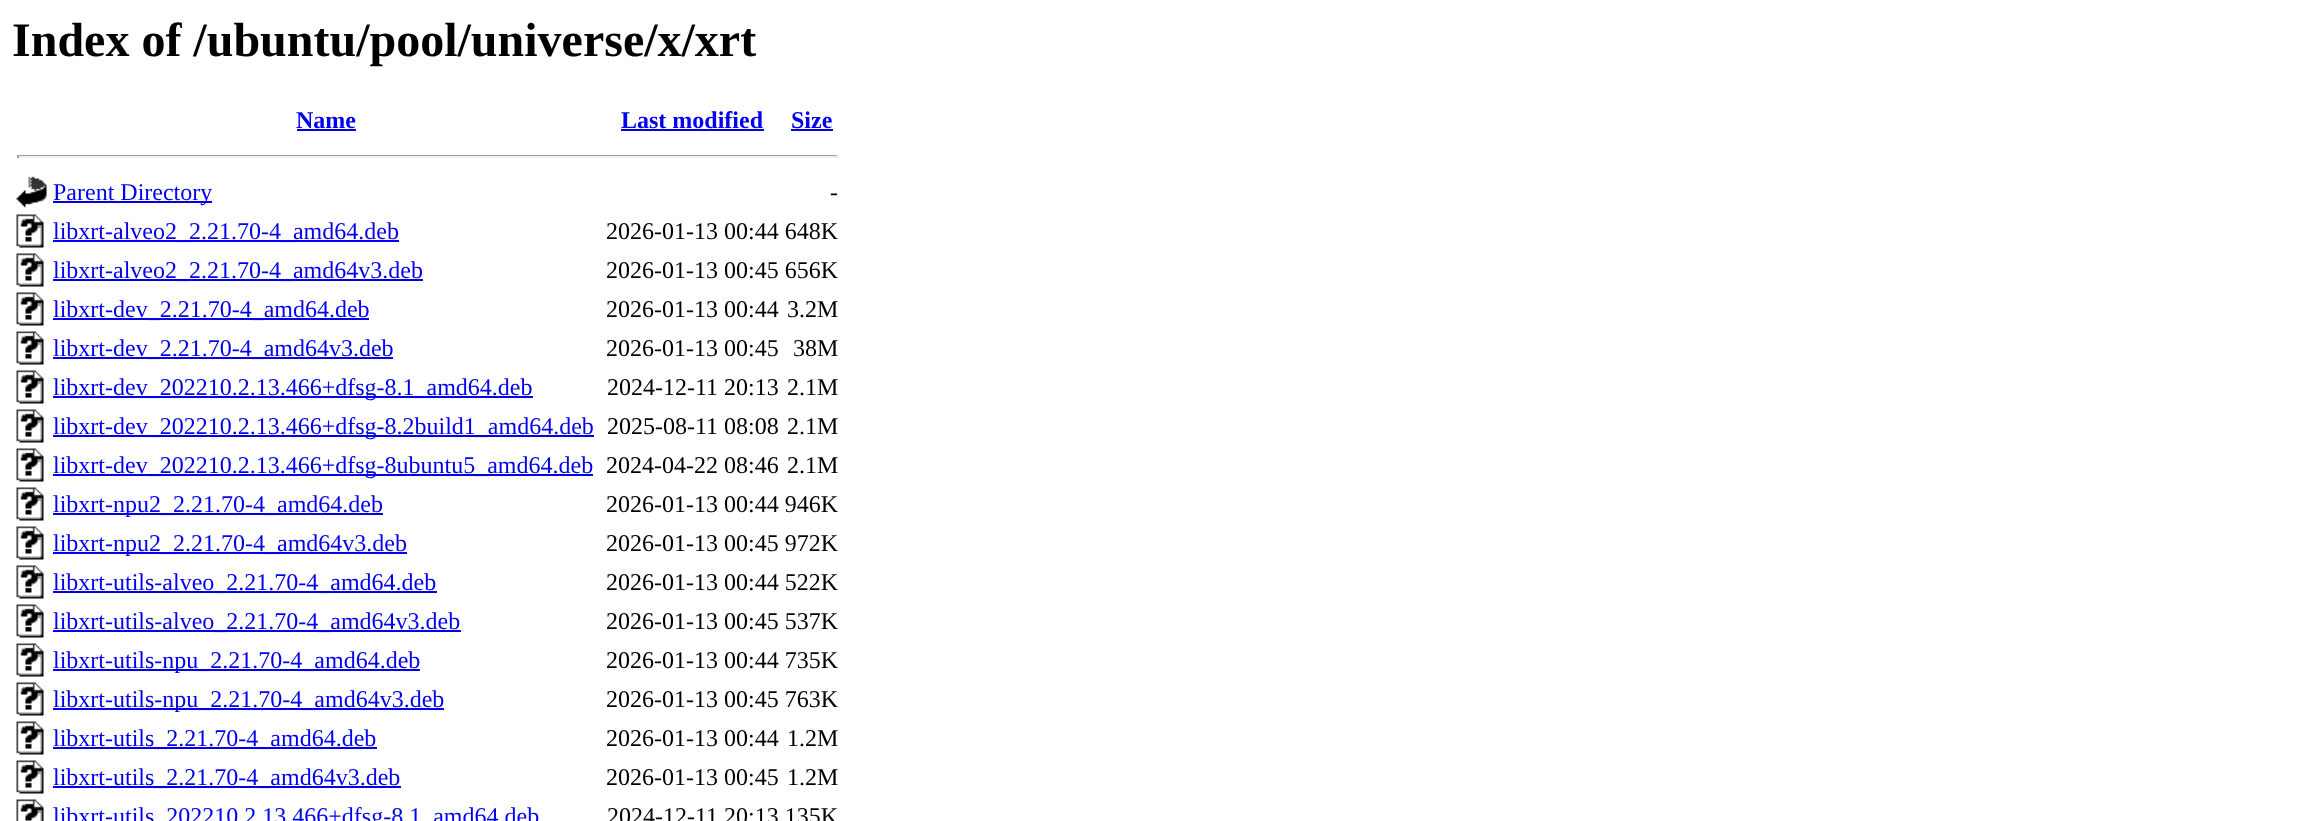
<svg xmlns="http://www.w3.org/2000/svg" xmlns:xlink="http://www.w3.org/1999/xlink" width="2307" height="821" viewBox="0 0 2307 821">
<style>
.cls-1{font:bold 48px Liberation Serif;fill:#000000}
.cls-2{font:bold 24px Liberation Serif;fill:#0000ee}
.cls-3{font:24px Liberation Serif;fill:#0000ee}
.cls-4{font:24px Liberation Serif;fill:#000000}
</style>
<rect width="100%" height="100%" fill="#ffffff"/>
<rect fill="#0000ee" x="297" y="129" width="59" height="2"/>
<rect fill="#0000ee" x="621" y="129" width="143" height="2"/>
<rect fill="#0000ee" x="791" y="129" width="42" height="2"/>
<rect fill="#9f9f9f" x="17" y="155" width="822" height="1"/>
<rect fill="#eeeeee" x="837" y="155" width="2" height="3"/>
<rect fill="#eeeeee" x="17" y="156" width="822" height="2"/>
<rect fill="#9f9f9f" x="17" y="155" width="2" height="3"/>
<image xlink:href="image0.png" x="16" y="176" width="31" height="32"/>
<rect fill="#0000ee" x="53" y="201" width="159" height="2"/>
<image xlink:href="image1.png" x="16" y="214" width="28" height="34"/>
<rect fill="#0000ee" x="53" y="240" width="346" height="2"/>
<image xlink:href="image1.png" x="16" y="253" width="28" height="34"/>
<rect fill="#0000ee" x="53" y="279" width="370" height="2"/>
<image xlink:href="image1.png" x="16" y="292" width="28" height="34"/>
<rect fill="#0000ee" x="53" y="318" width="316" height="2"/>
<image xlink:href="image1.png" x="16" y="331" width="28" height="34"/>
<rect fill="#0000ee" x="53" y="357" width="340" height="2"/>
<image xlink:href="image1.png" x="16" y="370" width="28" height="34"/>
<rect fill="#0000ee" x="53" y="396" width="480" height="2"/>
<image xlink:href="image1.png" x="16" y="409" width="28" height="34"/>
<rect fill="#0000ee" x="53" y="435" width="541" height="2"/>
<image xlink:href="image1.png" x="16" y="448" width="28" height="34"/>
<rect fill="#0000ee" x="53" y="474" width="540" height="2"/>
<image xlink:href="image1.png" x="16" y="487" width="28" height="34"/>
<rect fill="#0000ee" x="53" y="513" width="330" height="2"/>
<image xlink:href="image1.png" x="16" y="526" width="28" height="34"/>
<rect fill="#0000ee" x="53" y="552" width="354" height="2"/>
<image xlink:href="image1.png" x="16" y="565" width="28" height="34"/>
<rect fill="#0000ee" x="53" y="591" width="384" height="2"/>
<image xlink:href="image1.png" x="16" y="604" width="28" height="34"/>
<rect fill="#0000ee" x="53" y="630" width="408" height="2"/>
<image xlink:href="image1.png" x="16" y="643" width="28" height="34"/>
<rect fill="#0000ee" x="53" y="669" width="367" height="2"/>
<image xlink:href="image1.png" x="16" y="682" width="28" height="34"/>
<rect fill="#0000ee" x="53" y="708" width="391" height="2"/>
<image xlink:href="image1.png" x="16" y="721" width="28" height="34"/>
<rect fill="#0000ee" x="53" y="747" width="324" height="2"/>
<image xlink:href="image1.png" x="16" y="760" width="28" height="34"/>
<rect fill="#0000ee" x="53" y="786" width="348" height="2"/>
<image xlink:href="image2.png" x="16" y="799" width="28" height="22"/>
<text class="cls-1" x="12" y="56">Index of /ubuntu/pool/universe/x/xrt</text>
<text class="cls-2" x="296" y="128">Name</text>
<text class="cls-2" x="621" y="128">Last modified</text>
<text class="cls-2" x="791" y="128">Size</text>
<text class="cls-3" x="53" y="200">Parent Directory</text>
<text class="cls-4" x="830" y="200">-</text>
<text class="cls-3" x="53" y="239">libxrt-alveo2_2.21.70-4_amd64.deb</text>
<text class="cls-4" x="606" y="239">2026-01-13 00:44 648K</text>
<text class="cls-3" x="53" y="278">libxrt-alveo2_2.21.70-4_amd64v3.deb</text>
<text class="cls-4" x="606" y="278">2026-01-13 00:45 656K</text>
<text class="cls-3" x="53" y="317">libxrt-dev_2.21.70-4_amd64.deb</text>
<text class="cls-4" x="606" y="317">2026-01-13 00:44</text>
<text class="cls-4" x="787" y="317">3.2M</text>
<text class="cls-3" x="53" y="356">libxrt-dev_2.21.70-4_amd64v3.deb</text>
<text class="cls-4" x="606" y="356">2026-01-13 00:45</text>
<text class="cls-4" x="793" y="356">38M</text>
<text class="cls-3" x="53" y="395">libxrt-dev_202210.2.13.466+dfsg-8.1_amd64.deb</text>
<text class="cls-4" x="607" y="395">2024-12-11 20:13</text>
<text class="cls-4" x="787" y="395">2.1M</text>
<text class="cls-3" x="53" y="434">libxrt-dev_202210.2.13.466+dfsg-8.2build1_amd64.deb</text>
<text class="cls-4" x="607" y="434">2025-08-11 08:08</text>
<text class="cls-4" x="787" y="434">2.1M</text>
<text class="cls-3" x="53" y="473">libxrt-dev_202210.2.13.466+dfsg-8ubuntu5_amd64.deb</text>
<text class="cls-4" x="606" y="473">2024-04-22 08:46</text>
<text class="cls-4" x="787" y="473">2.1M</text>
<text class="cls-3" x="53" y="512">libxrt-npu2_2.21.70-4_amd64.deb</text>
<text class="cls-4" x="606" y="512">2026-01-13 00:44 946K</text>
<text class="cls-3" x="53" y="551">libxrt-npu2_2.21.70-4_amd64v3.deb</text>
<text class="cls-4" x="606" y="551">2026-01-13 00:45 972K</text>
<text class="cls-3" x="53" y="590">libxrt-utils-alveo_2.21.70-4_amd64.deb</text>
<text class="cls-4" x="606" y="590">2026-01-13 00:44 522K</text>
<text class="cls-3" x="53" y="629">libxrt-utils-alveo_2.21.70-4_amd64v3.deb</text>
<text class="cls-4" x="606" y="629">2026-01-13 00:45 537K</text>
<text class="cls-3" x="53" y="668">libxrt-utils-npu_2.21.70-4_amd64.deb</text>
<text class="cls-4" x="606" y="668">2026-01-13 00:44 735K</text>
<text class="cls-3" x="53" y="707">libxrt-utils-npu_2.21.70-4_amd64v3.deb</text>
<text class="cls-4" x="606" y="707">2026-01-13 00:45 763K</text>
<text class="cls-3" x="53" y="746">libxrt-utils_2.21.70-4_amd64.deb</text>
<text class="cls-4" x="606" y="746">2026-01-13 00:44</text>
<text class="cls-4" x="787" y="746">1.2M</text>
<text class="cls-3" x="53" y="785">libxrt-utils_2.21.70-4_amd64v3.deb</text>
<text class="cls-4" x="606" y="785">2026-01-13 00:45</text>
<text class="cls-4" x="787" y="785">1.2M</text>
<text class="cls-3" x="53" y="824">libxrt-utils_202210.2.13.466+dfsg-8.1_amd64.deb</text>
<text class="cls-4" x="607" y="824">2024-12-11 20:13 135K</text>
</svg>
